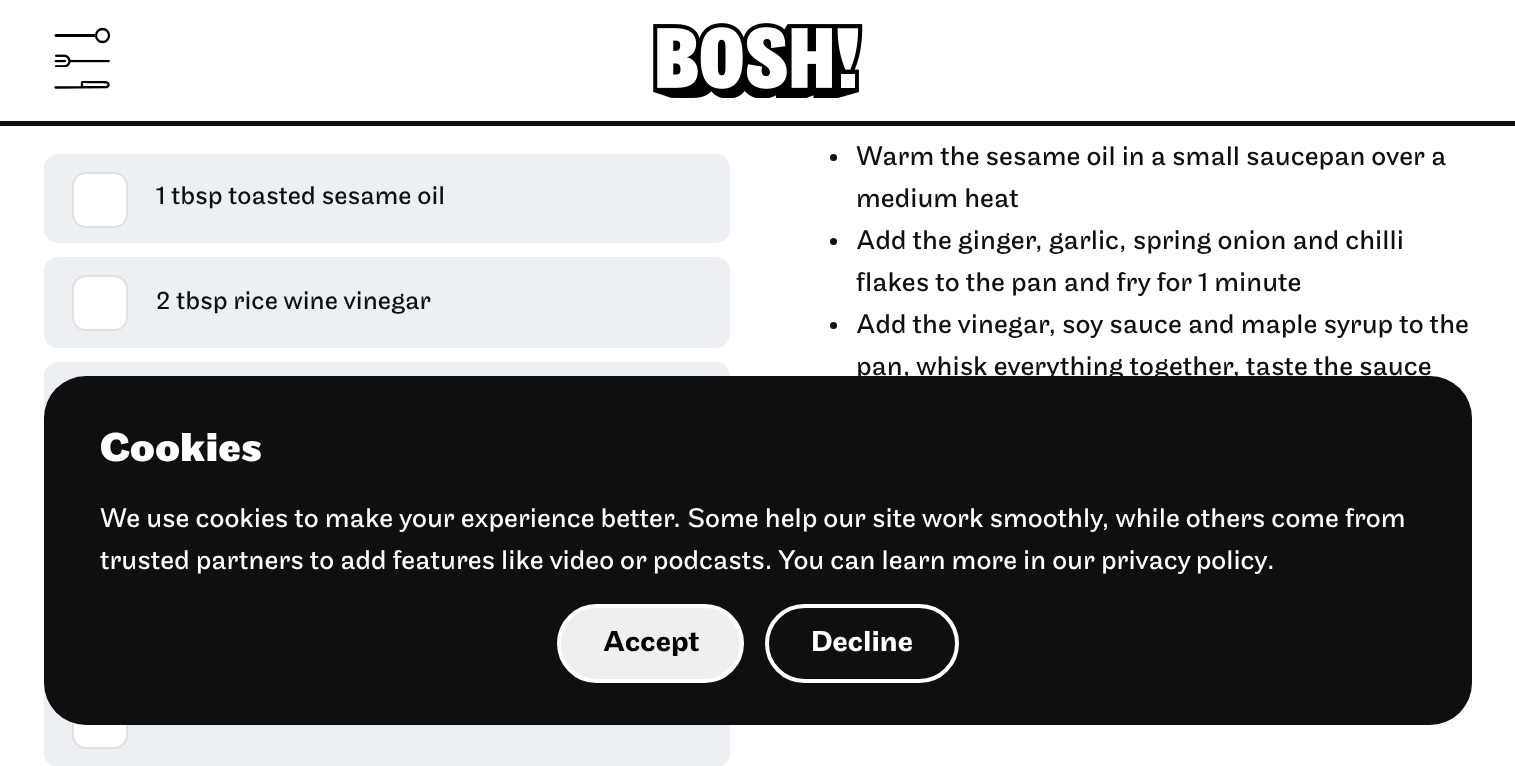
<svg xmlns="http://www.w3.org/2000/svg" xmlns:xlink="http://www.w3.org/1999/xlink" width="1515" height="766" viewBox="0 0 1515 766">
<style>
.cls-1{font:26.6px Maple;fill:#0e0f11}
.cls-2{font:28px Maple;fill:#0e0f11}
.cls-3{font:bold 42px Maple;fill:#ffffff}
.cls-4{font:28px Maple;fill:#ffffff}
.cls-5{font:500 30px Maple;fill:#000000}
.cls-6{font:500 30px Maple;fill:#ffffff}
</style>
<defs>
<clipPath id="clip1"><rect x="54" y="81" width="56" height="8"/></clipPath>
</defs>
<rect width="100%" height="100%" fill="#ffffff"/>
<rect fill="#0e0f11" x="0" y="121" width="1515" height="5"/>
<circle fill="none" stroke="#000000" stroke-width="2.3" cx="102.5" cy="35.5" r="6.5"/>
<path fill="#000000" d="M56 34C54 34 54 37 56 37ZM56 37H96V34H56Z"/>
<image xlink:href="image0.png" x="54" y="54" width="56" height="13"/>
<g clip-path="url(#clip1)">
<path fill="none" stroke="#000000" stroke-width="2.3" stroke-linecap="round" d="M82 86.5C82 81 81 82 86.5 82H102C103.5 82 109.5 81.5 108.5 85.5L107 87L55.5 87.5"/>
</g>
<image xlink:href="image1.png" x="653" y="23" width="210" height="75"/>
<rect fill="#edf0f3" x="44" y="154" width="686" height="89" rx="14"/>
<rect fill="#ffffff" stroke="#e0e0e0" stroke-width="2" x="73" y="173" width="54" height="54" rx="13"/>
<rect fill="#edf0f3" x="44" y="257" width="686" height="91" rx="14"/>
<rect fill="#ffffff" stroke="#e0e0e0" stroke-width="2" x="73" y="276" width="54" height="54" rx="13"/>
<rect fill="#edf0f3" x="44" y="362" width="686" height="91" rx="14"/>
<rect fill="#edf0f3" x="44" y="676" width="686" height="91" rx="14"/>
<rect fill="#ffffff" stroke="#e0e0e0" stroke-width="2" x="73" y="694" width="54" height="54" rx="13"/>
<circle fill="#0e0f11" cx="833.5" cy="157.5" r="3.5"/>
<circle fill="#0e0f11" cx="833.5" cy="241.5" r="3.5"/>
<circle fill="#0e0f11" cx="833.5" cy="325.5" r="3.5"/>
<rect fill="#0e0f11" x="44" y="376" width="1428" height="349" rx="42"/>
<rect fill="#efefef" stroke="#ffffff" stroke-width="4" x="559" y="606" width="183" height="75" rx="37.5"/>
<rect fill="none" stroke="#ffffff" stroke-width="4" x="767" y="606" width="190" height="75" rx="37.5"/>
<text class="cls-1" x="156" y="204">1 tbsp toasted sesame oil</text>
<text class="cls-1" x="156" y="309">2 tbsp rice wine vinegar</text>
<text class="cls-2"><tspan x="856" y="165">Warm the sesame oil in a small saucepan over a</tspan><tspan x="856" y="207">medium heat</tspan><tspan x="856" y="249">Add the ginger, garlic, spring onion and chilli</tspan><tspan x="856" y="291">flakes to the pan and fry for 1 minute</tspan><tspan x="856" y="333">Add the vinegar, soy sauce and maple syrup to the</tspan><tspan x="856" y="375">pan, whisk everything together, taste the sauce</tspan></text>
<text class="cls-3" x="100" y="461">Cookies</text>
<text class="cls-4"><tspan x="100" y="527">We use cookies to make your experience better. Some help our site work smoothly, while others come from</tspan><tspan x="100" y="569">trusted partners to add features like video or podcasts. You can learn more in our</tspan></text>
<text class="cls-4" x="1101" y="569" word-spacing="-1">privacy policy</text>
<text class="cls-4" x="1267" y="569">.</text>
<text class="cls-5" x="603" y="651">Accept</text>
<text class="cls-6" x="811" y="651">Decline</text>
</svg>
